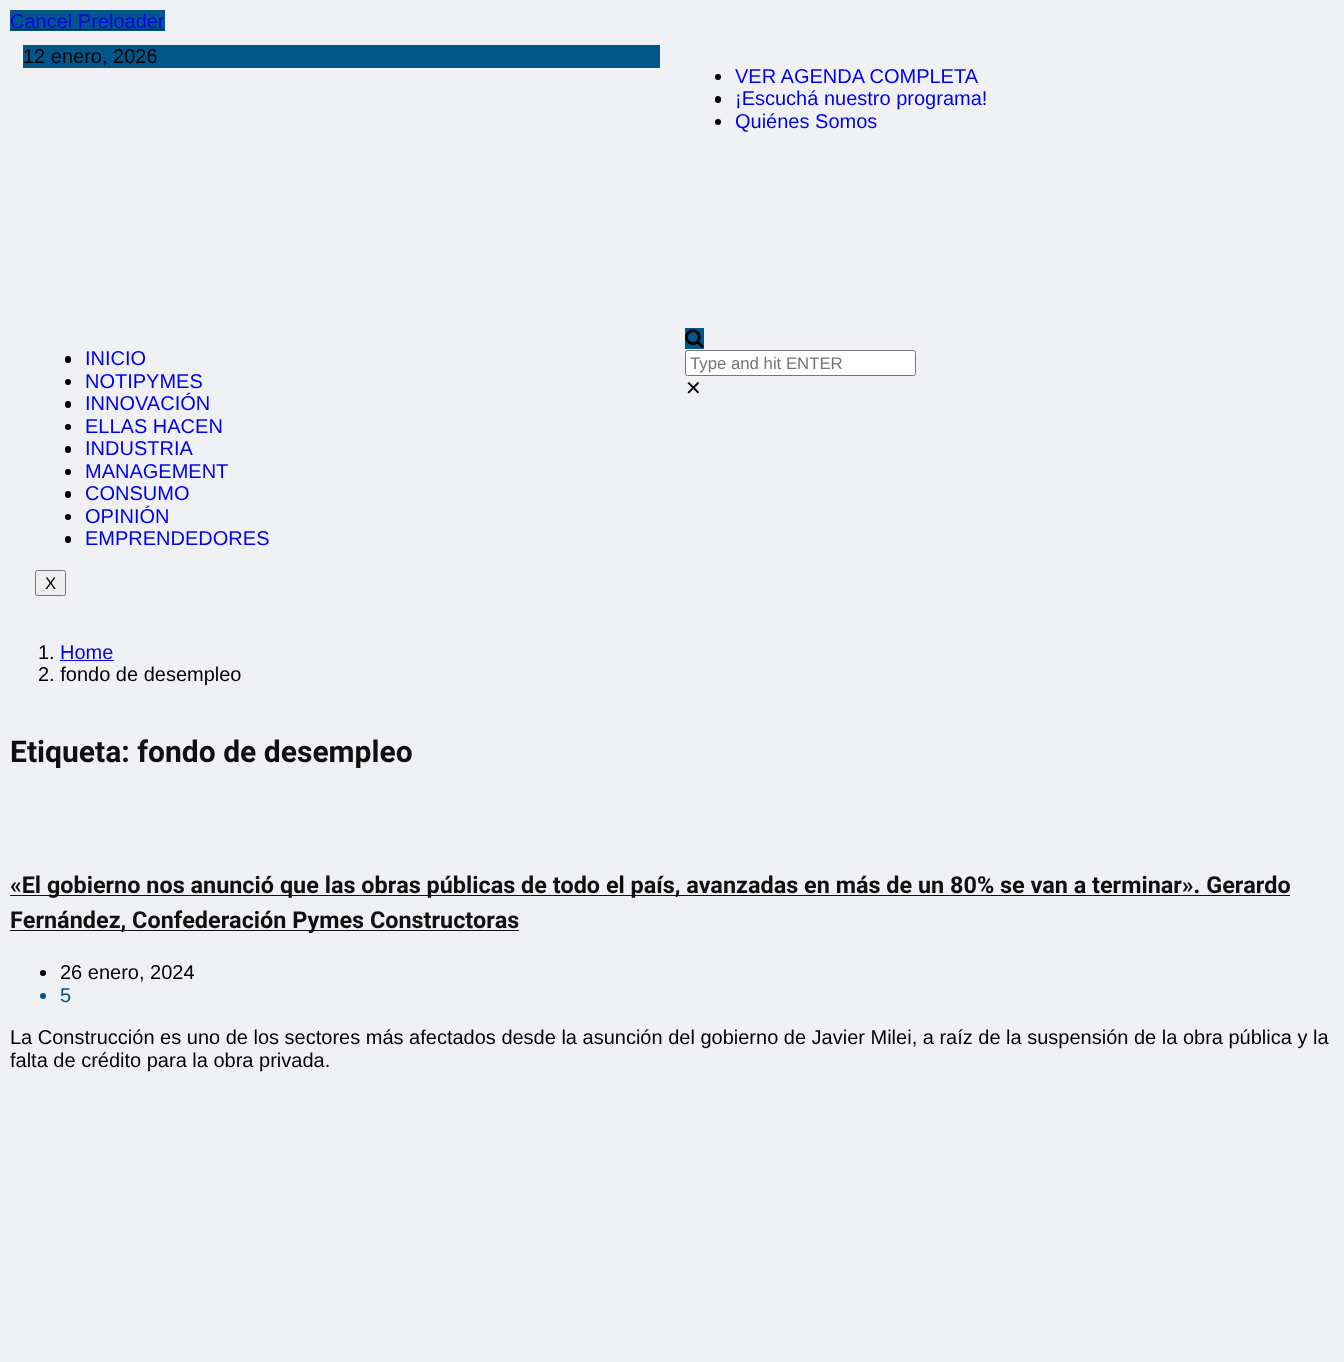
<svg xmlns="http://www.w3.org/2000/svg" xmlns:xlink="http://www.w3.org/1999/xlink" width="1344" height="1362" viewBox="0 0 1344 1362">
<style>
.cls-1{font:20px Arimo;fill:#0000ee}
.cls-2{font:20px Arimo;fill:#000000}
.cls-3{font:16.75px Liberation Sans;fill:#000000}
.cls-4{font:16.75px Liberation Sans;fill:#757575}
.cls-5{font:20px DejaVu Sans;fill:#000000}
.cls-6{font:bold 30px Heebo;fill:#101010}
.cls-7{font:bold 23.4px Heebo;fill:#101010}
.cls-8{font:20px Arimo;fill:#005689}
</style>
<rect width="100%" height="100%" fill="#f0f1f4"/>
<rect fill="#005689" x="10" y="10" width="155" height="21"/>
<rect fill="#0000ee" x="10" y="29" width="155" height="1"/>
<rect fill="#005689" x="23" y="45" width="637" height="23"/>
<circle fill="#000000" cx="718" cy="77" r="3"/>
<rect fill="#000000" x="715" y="96" width="6" height="7" rx="3"/>
<circle fill="#000000" cx="718" cy="122" r="3"/>
<rect fill="#000000" x="65" y="356" width="6" height="7" rx="3"/>
<circle fill="#000000" cx="68" cy="382" r="3"/>
<rect fill="#000000" x="65" y="401" width="6" height="7" rx="3"/>
<circle fill="#000000" cx="68" cy="427" r="3"/>
<rect fill="#000000" x="65" y="446" width="6" height="7" rx="3"/>
<circle fill="#000000" cx="68" cy="472" r="3"/>
<rect fill="#000000" x="65" y="491" width="6" height="7" rx="3"/>
<circle fill="#000000" cx="68" cy="517" r="3"/>
<rect fill="#000000" x="65" y="536" width="6" height="7" rx="3"/>
<rect fill="#efefef" stroke="#767676" x="35.5" y="570.5" width="30" height="25" rx="2"/>
<rect fill="#005689" x="685" y="328" width="19" height="21"/>
<image xlink:href="image0.png" x="685" y="329" width="19" height="19"/>
<rect fill="#ffffff" stroke="#767676" x="685.5" y="350.5" width="230" height="25" rx="2"/>
<rect fill="#0000ee" x="60" y="660" width="54" height="1"/>
<rect fill="#101010" x="10" y="895" width="1280" height="1"/>
<rect fill="#101010" x="10" y="930" width="509" height="1"/>
<circle fill="#000000" cx="43" cy="973" r="3"/>
<circle fill="#005689" cx="43" cy="996" r="3"/>
<text class="cls-1" x="10" y="28">Cancel Preloader</text>
<text class="cls-2" x="23" y="63">12 enero, 2026</text>
<text class="cls-1"><tspan x="735" y="83">VER AGENDA COMPLETA</tspan><tspan x="735" y="105">¡Escuchá nuestro programa!</tspan><tspan x="735" y="128">Quiénes Somos</tspan></text>
<text class="cls-1"><tspan x="85" y="365">INICIO</tspan><tspan x="85" y="388">NOTIPYMES</tspan><tspan x="85" y="410">INNOVACIÓN</tspan><tspan x="85" y="433">ELLAS HACEN</tspan><tspan x="85" y="455">INDUSTRIA</tspan><tspan x="85" y="478">MANAGEMENT</tspan><tspan x="85" y="500">CONSUMO</tspan><tspan x="85" y="523">OPINIÓN</tspan><tspan x="85" y="545">EMPRENDEDORES</tspan></text>
<text class="cls-3" x="45" y="589">X</text>
<text class="cls-4" x="690" y="369">Type and hit ENTER</text>
<text class="cls-5" x="685" y="395">✕</text>
<text class="cls-2" x="38" y="659">1.</text>
<text class="cls-1" x="60" y="659">Home</text>
<text class="cls-2" x="38" y="681">2. fondo de desempleo</text>
<text class="cls-6" x="10" y="762">Etiqueta: fondo de desempleo</text>
<text class="cls-7"><tspan x="10" y="893">«El gobierno nos anunció que las obras públicas de todo el país, avanzadas en más de un 80% se van a terminar». Gerardo</tspan><tspan x="10" y="928">Fernández, Confederación Pymes Constructoras</tspan></text>
<text class="cls-2" x="60" y="979">26 enero, 2024</text>
<text class="cls-8" x="60" y="1002">5</text>
<text class="cls-2"><tspan x="10" y="1044">La Construcción es uno de los sectores más afectados desde la asunción del gobierno de Javier Milei, a raíz de la suspensión de la obra pública y la</tspan><tspan x="10" y="1067">falta de crédito para la obra privada.</tspan></text>
</svg>
